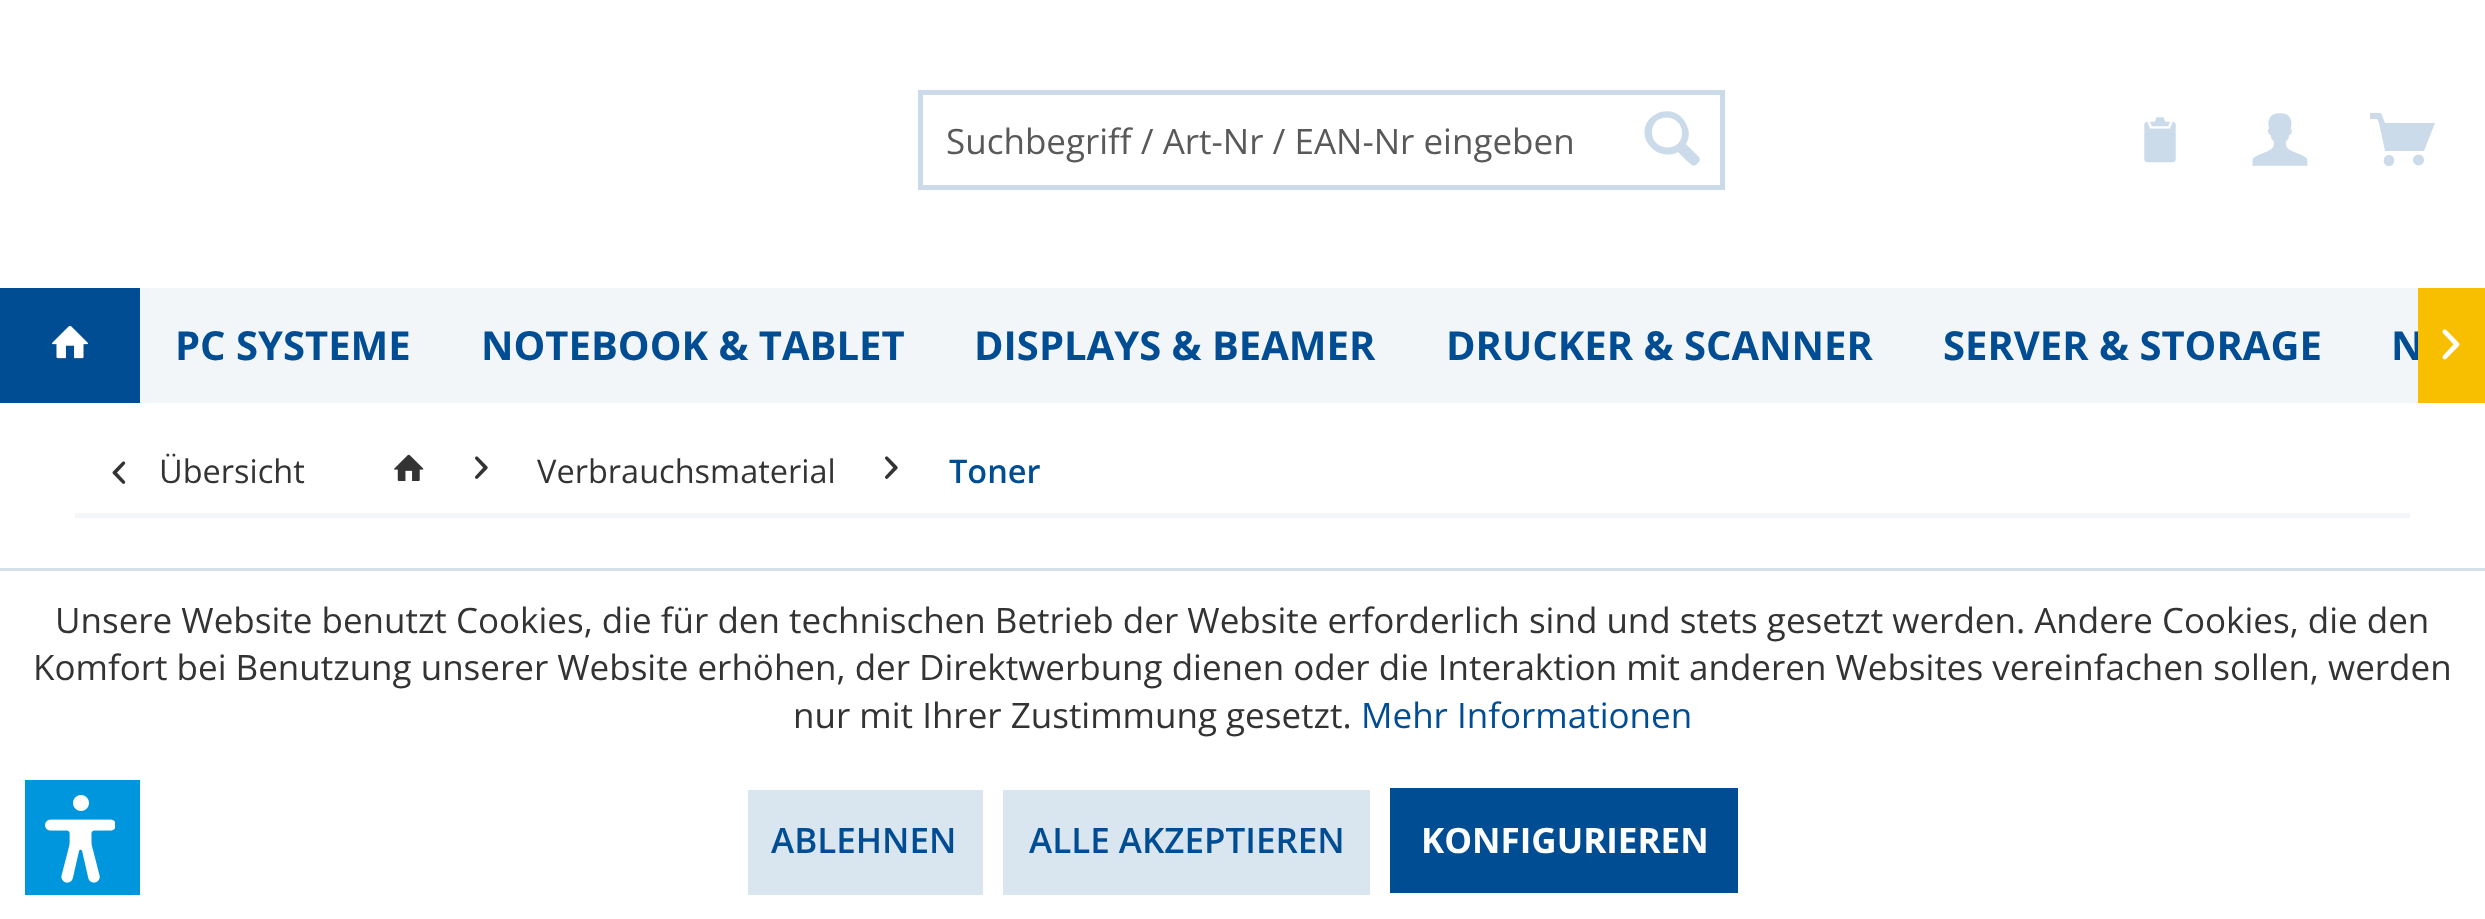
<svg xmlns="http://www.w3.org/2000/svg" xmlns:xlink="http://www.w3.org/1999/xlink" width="2485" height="919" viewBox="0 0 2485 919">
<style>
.cls-1{font:35px Open Sans;fill:#595959}
.cls-2{font:bold 40px Open Sans;fill:#004d93}
.cls-3{font:32.5px Open Sans;fill:#333333}
.cls-4{font:600 32.5px Open Sans;fill:#004d93}
.cls-5{font:35px Open Sans;fill:#333333}
.cls-6{font:35px Open Sans;fill:#004d93}
.cls-7{font:600 35px Open Sans;fill:#004d93}
.cls-8{font:bold 35px Open Sans;fill:#ffffff}
</style>
<rect width="100%" height="100%" fill="#ffffff"/>
<rect fill="none" stroke="#ccdbe9" stroke-width="5" x="920.5" y="92.5" width="802" height="95"/>
<path fill="#ccdbe9" d="M1699 157L1686 144C1689 139 1690 132 1687 126C1676 97 1634 115 1647 142C1653 153 1667 158 1678 152L1687 161C1691 164 1693 168 1697 164C1699 162 1701 160 1699 157ZM1652 132C1652 112 1682 113 1682 133C1682 153 1652 152 1652 132Z"/>
<image xlink:href="image0.png" x="2144" y="117" width="32" height="46"/>
<image xlink:href="image1.png" x="2252" y="113" width="56" height="53"/>
<path fill="#ccdbe9" d="M2385 151H2424L2435 123H2385L2381 113H2370V119H2377L2379 123ZM2389 155C2382 155 2382 166 2389 166C2396 166 2396 155 2389 155ZM2424 160C2424 167 2413 167 2413 160C2413 153 2424 153 2424 160Z"/>
<rect fill="#f2f6f9" x="140" y="288" width="2278" height="115"/>
<rect fill="#004d93" x="0" y="288" width="140" height="115"/>
<image xlink:href="image2.png" x="52" y="326" width="36" height="33"/>
<rect fill="#f2f6f9" x="75" y="513" width="2335" height="5"/>
<image xlink:href="image4.png" x="112" y="461" width="14" height="23"/>
<image xlink:href="image5.png" x="394" y="454" width="30" height="27"/>
<image xlink:href="image6.png" x="475" y="456" width="13" height="23"/>
<image xlink:href="image6.png" x="885" y="456" width="13" height="23"/>
<rect fill="#d3e0eb" x="0" y="568" width="2485" height="3"/>
<rect fill="#d9e5ef" x="748" y="790" width="235" height="105"/>
<rect fill="#d9e5ef" x="1003" y="790" width="367" height="105"/>
<rect fill="#004d93" x="1390" y="788" width="348" height="105"/>
<rect fill="#0096de" x="25" y="780" width="115" height="115"/>
<image xlink:href="image7.png" x="45" y="795" width="70" height="88"/>
<text class="cls-1" x="946" y="154">Suchbegriff / Art-Nr / EAN-Nr eingeben</text>
<text class="cls-2" x="175" y="360">PC SYSTEME</text>
<text class="cls-2" x="481" y="360">NOTEBOOK &amp; TABLET</text>
<text class="cls-2" x="974" y="360">DISPLAYS &amp; BEAMER</text>
<text class="cls-2" x="1446" y="360">DRUCKER &amp; SCANNER</text>
<text class="cls-2" x="1943" y="360">SERVER &amp; STORAGE</text>
<text class="cls-2" x="2391" y="360">N</text>
<rect fill="#f8bf00" x="2418" y="288" width="67" height="115"/>
<image xlink:href="image3.png" x="2442" y="329" width="18" height="31"/>
<text class="cls-3" x="159" y="483">Übersicht</text>
<text class="cls-3" x="537" y="483">Verbrauchsmaterial</text>
<text class="cls-4" x="949" y="483">Toner</text>
<text class="cls-5" x="55" y="633">Unsere Website benutzt Cookies, die für den technischen Betrieb der Website erforderlich sind und stets gesetzt werden. Andere Cookies, die den</text>
<text class="cls-5" x="33" y="680">Komfort bei Benutzung unserer Website erhöhen, der Direktwerbung dienen oder die Interaktion mit anderen Websites vereinfachen sollen, werden</text>
<text class="cls-5" x="793" y="728">nur mit Ihrer Zustimmung gesetzt.</text>
<text class="cls-6" x="1361" y="728">Mehr Informationen</text>
<text class="cls-7" x="771" y="853">ABLEHNEN</text>
<text class="cls-7" x="1029" y="853">ALLE AKZEPTIEREN</text>
<text class="cls-8" x="1421" y="853">KONFIGURIEREN</text>
</svg>
